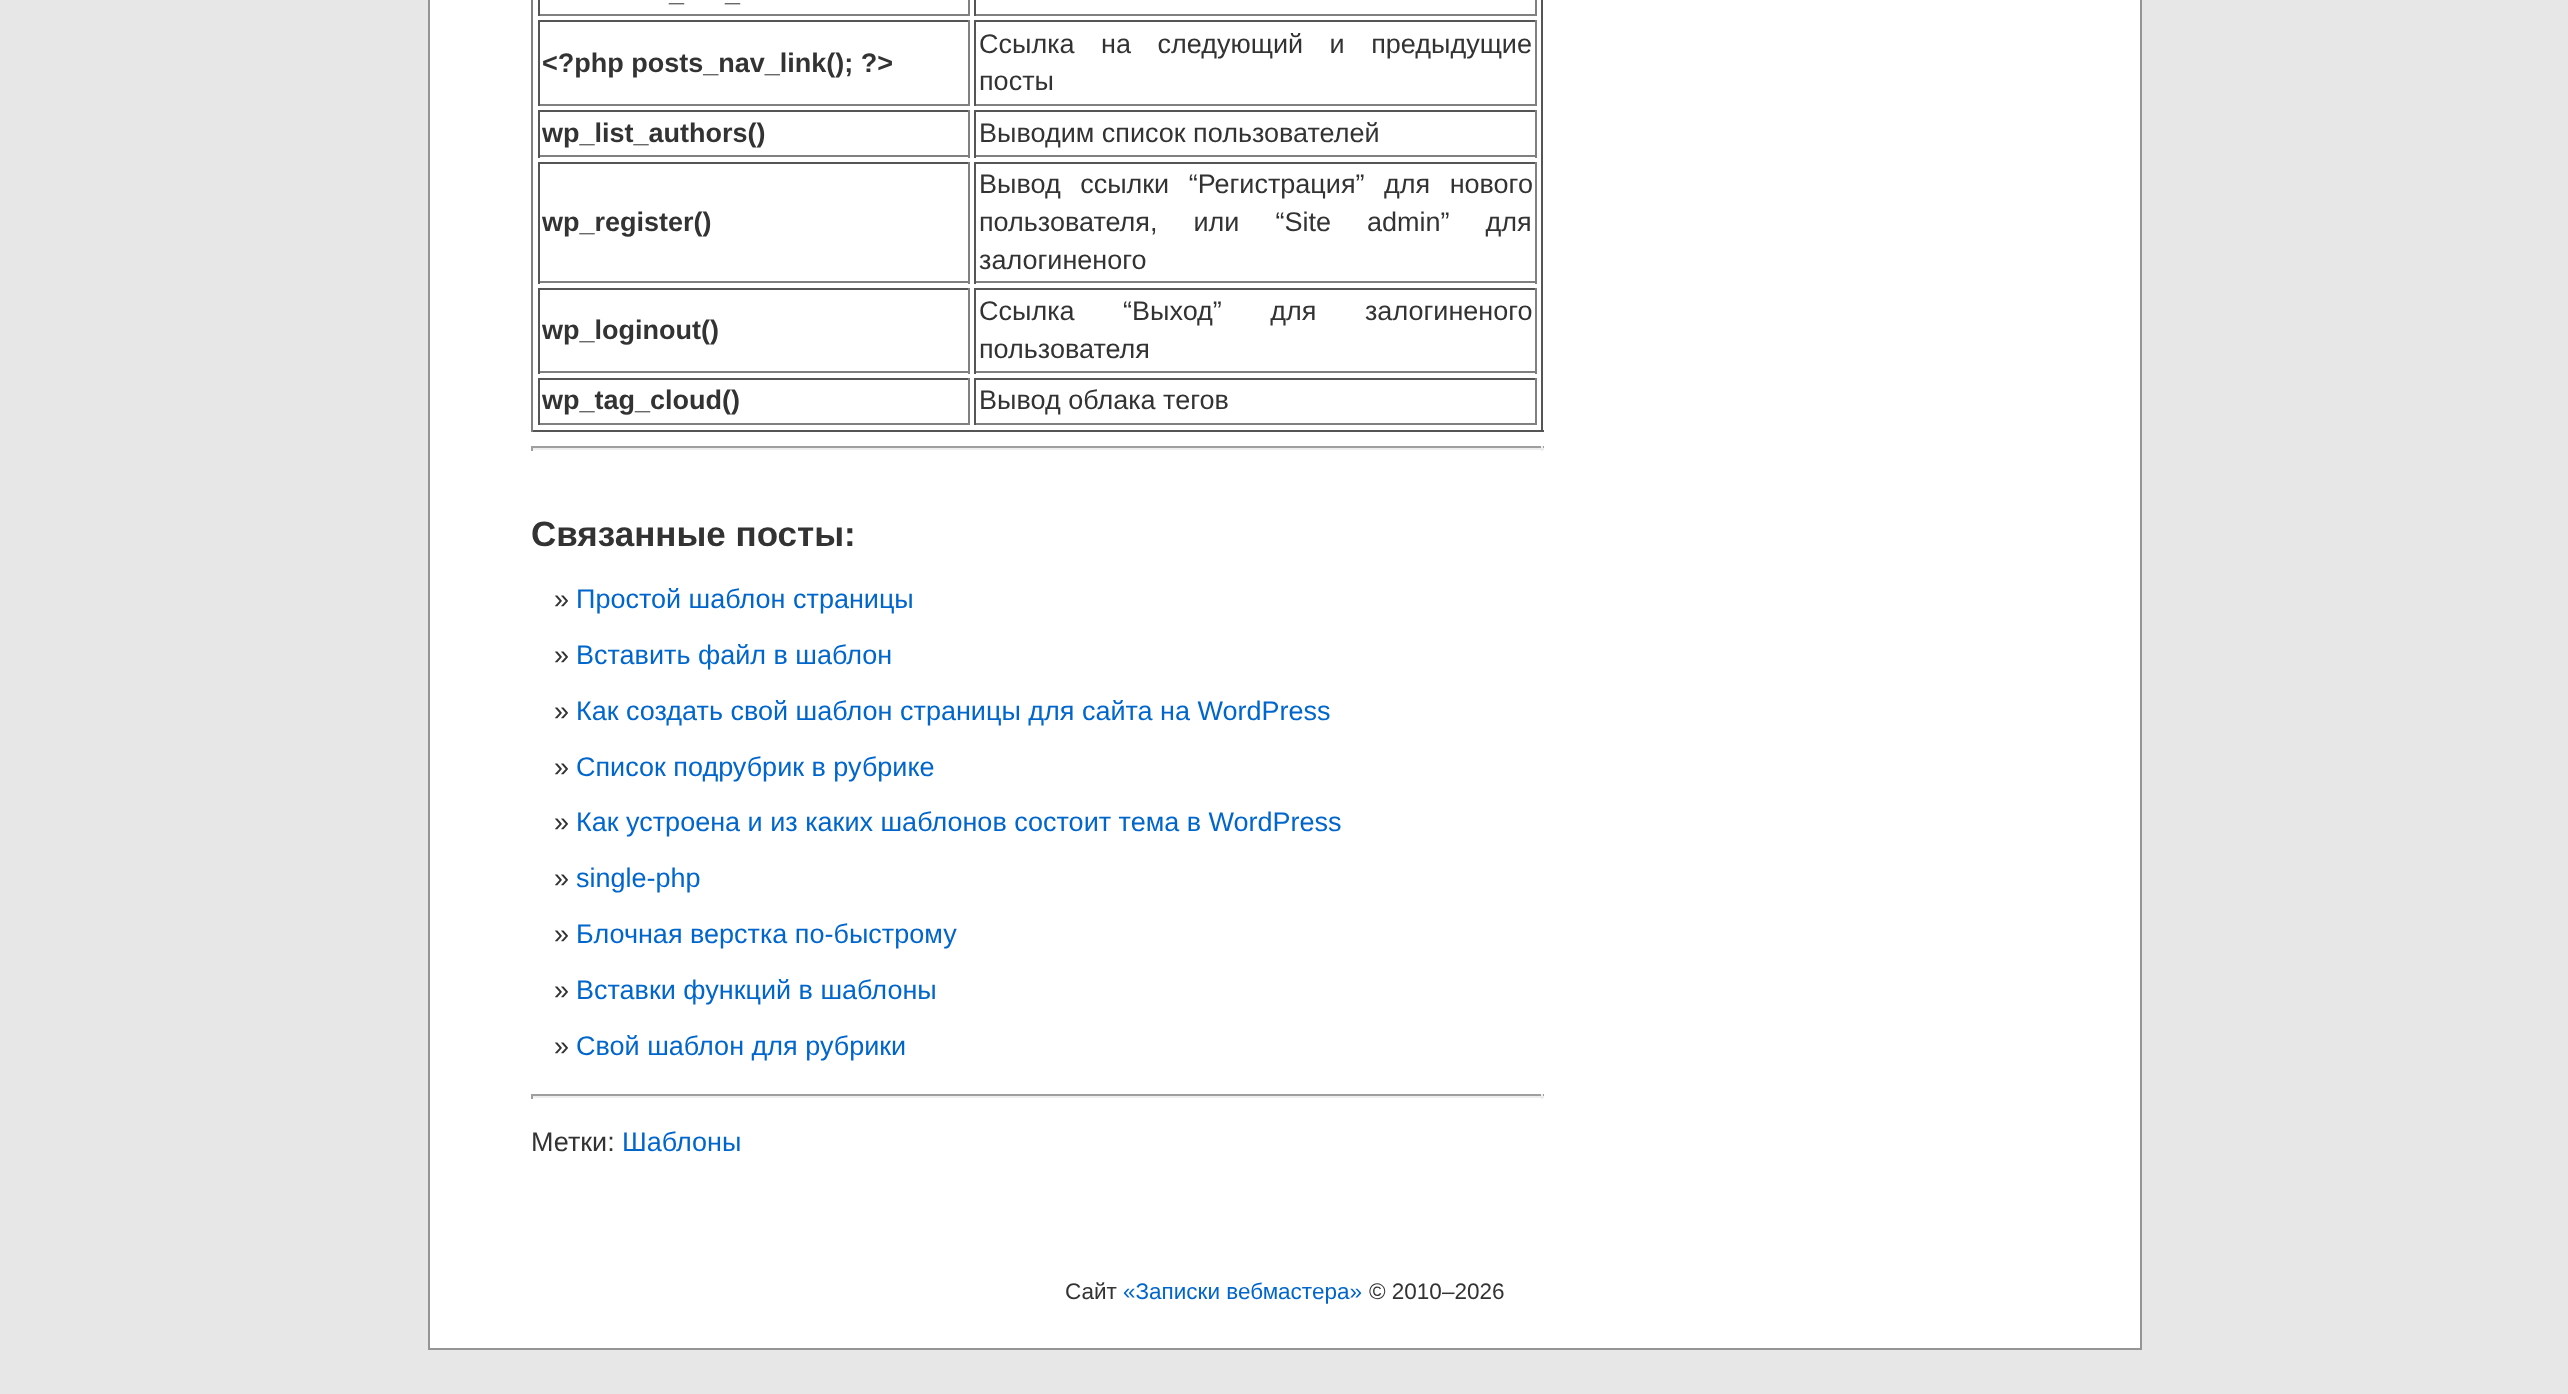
<svg xmlns="http://www.w3.org/2000/svg" xmlns:xlink="http://www.w3.org/1999/xlink" width="2568" height="1394" viewBox="0 0 2568 1394">
<style>
.cls-1{font:bold 27px Liberation Sans;fill:#333333}
.cls-2{font:27px Liberation Sans;fill:#333333}
.cls-3{font:bold 35px Liberation Sans;fill:#333333}
.cls-4{font:27px Liberation Sans;fill:#0066cc}
.cls-5{font:22.5px Liberation Sans;fill:#333333}
.cls-6{font:22.5px Liberation Sans;fill:#0066cc}
</style>
<rect width="100%" height="100%" fill="#e7e7e7"/>
<rect fill="#ffffff" stroke="#959596" stroke-width="2" x="429" y="-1" width="1712" height="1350"/>
<rect fill="#555555" x="1541" y="0" width="2" height="432"/>
<rect fill="#555555" x="531" y="430" width="1013" height="2"/>
<rect fill="#808080" x="531" y="0" width="2" height="432"/>
<rect fill="#808080" x="968" y="0" width="2" height="16"/>
<rect fill="#808080" x="538" y="14" width="432" height="2"/>
<rect fill="#555555" x="538" y="0" width="2" height="16"/>
<rect fill="#808080" x="1535" y="0" width="2" height="16"/>
<rect fill="#808080" x="974" y="14" width="563" height="2"/>
<rect fill="#555555" x="974" y="0" width="2" height="16"/>
<rect fill="#555555" x="538" y="20" width="432" height="2"/>
<rect fill="#808080" x="968" y="20" width="2" height="86"/>
<rect fill="#808080" x="538" y="104" width="432" height="2"/>
<rect fill="#555555" x="538" y="20" width="2" height="86"/>
<rect fill="#555555" x="974" y="20" width="563" height="2"/>
<rect fill="#808080" x="1535" y="20" width="2" height="86"/>
<rect fill="#808080" x="974" y="104" width="563" height="2"/>
<rect fill="#555555" x="974" y="20" width="2" height="86"/>
<rect fill="#555555" x="538" y="110" width="432" height="2"/>
<rect fill="#808080" x="968" y="110" width="2" height="48"/>
<rect fill="#808080" x="538" y="155" width="432" height="2"/>
<rect fill="#555555" x="538" y="110" width="2" height="48"/>
<rect fill="#555555" x="974" y="110" width="563" height="2"/>
<rect fill="#808080" x="1535" y="110" width="2" height="48"/>
<rect fill="#808080" x="974" y="155" width="563" height="2"/>
<rect fill="#555555" x="974" y="110" width="2" height="48"/>
<rect fill="#555555" x="538" y="162" width="432" height="2"/>
<rect fill="#808080" x="968" y="162" width="2" height="122"/>
<rect fill="#808080" x="538" y="281" width="432" height="2"/>
<rect fill="#555555" x="538" y="162" width="2" height="122"/>
<rect fill="#555555" x="974" y="162" width="563" height="2"/>
<rect fill="#808080" x="1535" y="162" width="2" height="122"/>
<rect fill="#808080" x="974" y="281" width="563" height="2"/>
<rect fill="#555555" x="974" y="162" width="2" height="122"/>
<rect fill="#555555" x="538" y="288" width="432" height="2"/>
<rect fill="#808080" x="968" y="288" width="2" height="86"/>
<rect fill="#808080" x="538" y="371" width="432" height="2"/>
<rect fill="#555555" x="538" y="288" width="2" height="86"/>
<rect fill="#555555" x="974" y="288" width="563" height="2"/>
<rect fill="#808080" x="1535" y="288" width="2" height="86"/>
<rect fill="#808080" x="974" y="371" width="563" height="2"/>
<rect fill="#555555" x="974" y="288" width="2" height="86"/>
<rect fill="#555555" x="538" y="378" width="432" height="2"/>
<rect fill="#808080" x="968" y="378" width="2" height="47"/>
<rect fill="#808080" x="538" y="423" width="432" height="2"/>
<rect fill="#555555" x="538" y="378" width="2" height="47"/>
<rect fill="#555555" x="974" y="378" width="563" height="2"/>
<rect fill="#808080" x="1535" y="378" width="2" height="47"/>
<rect fill="#808080" x="974" y="423" width="563" height="2"/>
<rect fill="#555555" x="974" y="378" width="2" height="47"/>
<rect fill="#9f9f9f" x="531" y="446" width="1013" height="2"/>
<rect fill="#eeeeee" x="1541" y="446" width="2" height="5"/>
<rect fill="#eeeeee" x="531" y="448" width="1013" height="2"/>
<rect fill="#9f9f9f" x="531" y="446" width="2" height="5"/>
<rect fill="#9f9f9f" x="531" y="1094" width="1013" height="2"/>
<rect fill="#eeeeee" x="1541" y="1094" width="2" height="5"/>
<rect fill="#eeeeee" x="531" y="1096" width="1013" height="2"/>
<rect fill="#9f9f9f" x="531" y="1094" width="2" height="5"/>
<text class="cls-1" x="669" y="1">_</text>
<text class="cls-1" x="725" y="1">_</text>
<text class="cls-1" x="542" y="72">&lt;?php posts_nav_link(); ?&gt;</text>
<text class="cls-2"><tspan x="979" y="53" word-spacing="19">Ссылка на следующий и предыдущие</tspan><tspan x="979" y="90">посты</tspan></text>
<text class="cls-1" x="542" y="142">wp_list_authors()</text>
<text class="cls-2" x="979" y="142">Выводим список пользователей</text>
<text class="cls-1" x="542" y="231">wp_register()</text>
<text class="cls-2"><tspan x="979" y="193" word-spacing="12">Вывод ссылки “Регистрация” для нового</tspan><tspan x="979" y="231" word-spacing="28.5">пользователя, или “Site admin” для</tspan><tspan x="979" y="269">залогиненого</tspan></text>
<text class="cls-1" x="542" y="339">wp_loginout()</text>
<text class="cls-2"><tspan x="979" y="320" word-spacing="41">Ссылка “Выход” для залогиненого</tspan><tspan x="979" y="358">пользователя</tspan></text>
<text class="cls-1" x="542" y="409">wp_tag_cloud()</text>
<text class="cls-2" x="979" y="409">Вывод облака тегов</text>
<text class="cls-3" x="531" y="546">Связанные посты:</text>
<text class="cls-2" x="554" y="608">»</text>
<text class="cls-4" x="576" y="608">Простой шаблон страницы</text>
<text class="cls-2" x="554" y="664">»</text>
<text class="cls-4" x="576" y="664">Вставить файл в шаблон</text>
<text class="cls-2" x="554" y="720">»</text>
<text class="cls-4" x="576" y="720">Как создать свой шаблон страницы для сайта на WordPress</text>
<text class="cls-2" x="554" y="776">»</text>
<text class="cls-4" x="576" y="776">Список подрубрик в рубрике</text>
<text class="cls-2" x="554" y="831">»</text>
<text class="cls-4" x="576" y="831">Как устроена и из каких шаблонов состоит тема в WordPress</text>
<text class="cls-2" x="554" y="887">»</text>
<text class="cls-4" x="576" y="887">single-php</text>
<text class="cls-2" x="554" y="943">»</text>
<text class="cls-4" x="576" y="943">Блочная верстка по-быстрому</text>
<text class="cls-2" x="554" y="999">»</text>
<text class="cls-4" x="576" y="999">Вставки функций в шаблоны</text>
<text class="cls-2" x="554" y="1055">»</text>
<text class="cls-4" x="576" y="1055">Свой шаблон для рубрики</text>
<text class="cls-2" x="531" y="1151">Метки:</text>
<text class="cls-4" x="622" y="1151">Шаблоны</text>
<text class="cls-5" x="1065" y="1299">Сайт</text>
<text class="cls-6" x="1123" y="1299">«Записки вебмастера»</text>
<text class="cls-5" x="1369" y="1299">© 2010–2026</text>
</svg>
